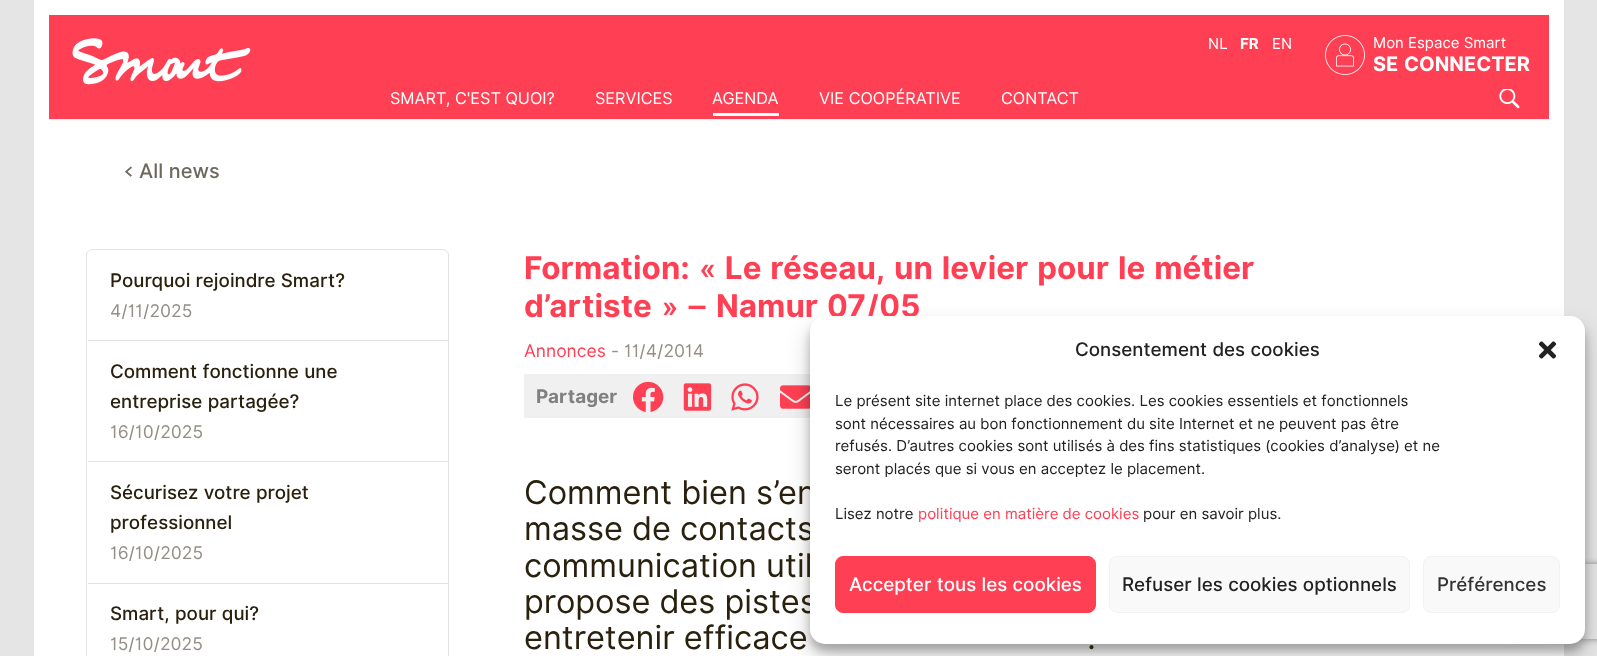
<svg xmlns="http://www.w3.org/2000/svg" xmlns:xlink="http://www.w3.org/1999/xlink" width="1597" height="656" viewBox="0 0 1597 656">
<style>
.cls-1{font:15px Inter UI;fill:#ffffff}
.cls-2{font:bold 15px Inter UI;fill:#ffffff}
.cls-3{font:bold 20px Inter UI;fill:#ffffff}
.cls-4{font:16.25px Inter UI;fill:#ffffff}
.cls-5{font:500 20px Inter UI;fill:#6f695d}
.cls-6{font:500 18.75px Inter UI;fill:#29200e}
.cls-7{font:17.5px Inter UI;fill:#949087}
.cls-8{font:bold 31.25px Inter UI;fill:#ff4054}
.cls-9{font:17.5px Inter UI;fill:#ff4054}
.cls-10{font:bold 18.75px Inter UI;fill:#808080}
.cls-11{font:32.5px Inter UI;fill:#29200e}
.cls-12{font:500 18.75px Inter UI;fill:#222222}
.cls-13{font:15px Inter UI;fill:#222222}
.cls-14{font:15px Inter UI;fill:#ff4054}
.cls-15{font:500 18.75px Inter UI;fill:#ffffff}
.cls-16{font:500 18.75px Inter UI;fill:#333333}
</style>
<defs>
<clipPath id="clip1"><path d="M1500 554H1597V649H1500ZM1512.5 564H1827.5C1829 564 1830 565 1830 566.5V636.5C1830 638 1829 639 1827.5 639H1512.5C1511 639 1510 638 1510 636.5V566.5C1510 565 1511 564 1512.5 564Z" clip-rule="evenodd"/></clipPath>
</defs>
<rect width="100%" height="100%" fill="#e5e5e5"/>
<rect fill="#ffffff" x="34" y="0" width="1530" height="656"/>
<rect fill="#f1f1f1" filter="blur(0.5px)" x="49" y="16" width="1500" height="104"/>
<rect fill="#ff4054" x="49" y="15" width="1500" height="104"/>
<image xlink:href="image0.png" x="72" y="38" width="179" height="47"/>
<image xlink:href="image1.png" x="1325" y="35" width="40" height="40"/>
<rect fill="#ffffff" x="713" y="113" width="66" height="3"/>
<image xlink:href="image2.png" x="1499" y="89" width="21" height="20"/>
<rect fill="none" stroke="#e4e3e1" x="86.5" y="249.5" width="362" height="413" rx="5.5"/>
<rect fill="#e4e3e1" x="88" y="340" width="360" height="1"/>
<rect fill="#e4e3e1" x="88" y="461" width="360" height="1"/>
<rect fill="#e4e3e1" x="88" y="583" width="360" height="1"/>
<rect fill="#f0f0f0" x="524" y="374" width="286" height="44"/>
<image xlink:href="image3.png" x="633" y="381" width="31" height="31"/>
<image xlink:href="image4.png" x="683" y="383" width="29" height="28"/>
<image xlink:href="image5.png" x="731" y="383" width="28" height="28"/>
<image xlink:href="image6.png" x="780" y="385" width="30" height="24"/>
<rect fill="#000000" fill-opacity="0.23" filter="blur(4px)" x="810" y="324" width="775" height="327" rx="15"/>
<rect fill="#000000" fill-opacity="0.19" filter="blur(12.5px)" x="810" y="329" width="775" height="327" rx="15"/>
<g clip-path="url(#clip1)">
<rect fill="#808080" filter="blur(3px)" x="1510" y="564" width="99" height="75" rx="2.5"/>
</g>
<text class="cls-1" x="1208" y="49">NL</text>
<text class="cls-2" x="1240" y="49">FR</text>
<text class="cls-1" x="1272" y="49">EN</text>
<text class="cls-1" x="1373" y="48">Mon Espace Smart</text>
<text class="cls-3" x="1373" y="71">SE CONNECTER</text>
<text class="cls-4" x="390" y="104">SMART, C'EST QUOI?</text>
<text class="cls-4" x="595" y="104">SERVICES</text>
<text class="cls-4" x="712" y="104">AGENDA</text>
<text class="cls-4" x="819" y="104">VIE COOPÉRATIVE</text>
<text class="cls-4" x="1001" y="104">CONTACT</text>
<text class="cls-5" x="124" y="178">&lt; All news</text>
<text class="cls-6" x="110" y="287">Pourquoi rejoindre Smart?</text>
<text class="cls-7" x="110" y="317">4/11/2025</text>
<text class="cls-6"><tspan x="110" y="378">Comment fonctionne une</tspan><tspan x="110" y="408">entreprise partagée?</tspan></text>
<text class="cls-7" x="110" y="438">16/10/2025</text>
<text class="cls-6"><tspan x="110" y="499">Sécurisez votre projet</tspan><tspan x="110" y="529">professionnel</tspan></text>
<text class="cls-7" x="110" y="559">16/10/2025</text>
<text class="cls-6" x="110" y="620">Smart, pour qui?</text>
<text class="cls-7" x="110" y="650">15/10/2025</text>
<text class="cls-8"><tspan x="524" y="279">Formation: « Le réseau, un levier pour le métier</tspan><tspan x="524" y="317">d’artiste » – Namur 07/05</tspan></text>
<text class="cls-9" x="524" y="357">Annonces</text>
<text class="cls-7" x="611" y="357">- 11/4/2014</text>
<text class="cls-10" x="536" y="403">Partager</text>
<text class="cls-11"><tspan x="524" y="504">Comment bien s’en</tspan><tspan x="524" y="540">masse de contacts</tspan><tspan x="524" y="577">communication util</tspan><tspan x="524" y="613">propose des pistes</tspan><tspan x="524" y="649">entretenir efficace</tspan></text>
<text class="cls-11" x="1087" y="649">.</text>
<rect fill="#ffffff" x="810" y="316" width="775" height="328" rx="15"/>
<text class="cls-12" x="1075" y="356">Consentement des cookies</text>
<image xlink:href="image7.png" x="1538" y="341" width="19" height="18"/>
<text class="cls-13"><tspan x="835" y="406">Le présent site internet place des cookies. Les cookies essentiels et fonctionnels</tspan><tspan x="835" y="429">sont nécessaires au bon fonctionnement du site Internet et ne peuvent pas être</tspan><tspan x="835" y="451">refusés. D’autres cookies sont utilisés à des fins statistiques (cookies d’analyse) et ne</tspan><tspan x="835" y="474">seront placés que si vous en acceptez le placement.</tspan></text>
<text class="cls-13" x="835" y="519">Lisez notre</text>
<text class="cls-14" x="918" y="519">politique en matière de cookies</text>
<text class="cls-13" x="1143" y="519">pour en savoir plus.</text>
<rect fill="#ff4054" stroke="#ff4054" x="835.5" y="556.5" width="260" height="56" rx="7.5"/>
<text class="cls-15" x="849" y="591">Accepter tous les cookies</text>
<rect fill="#f9f9f9" stroke="#f2f2f2" x="1109.5" y="556.5" width="300" height="56" rx="7.5"/>
<text class="cls-12" x="1122" y="591">Refuser les cookies optionnels</text>
<rect fill="#f9f9f9" stroke="#f2f2f2" x="1423.5" y="556.5" width="136" height="56" rx="7.5"/>
<text class="cls-16" x="1437" y="591">Préférences</text>
</svg>
